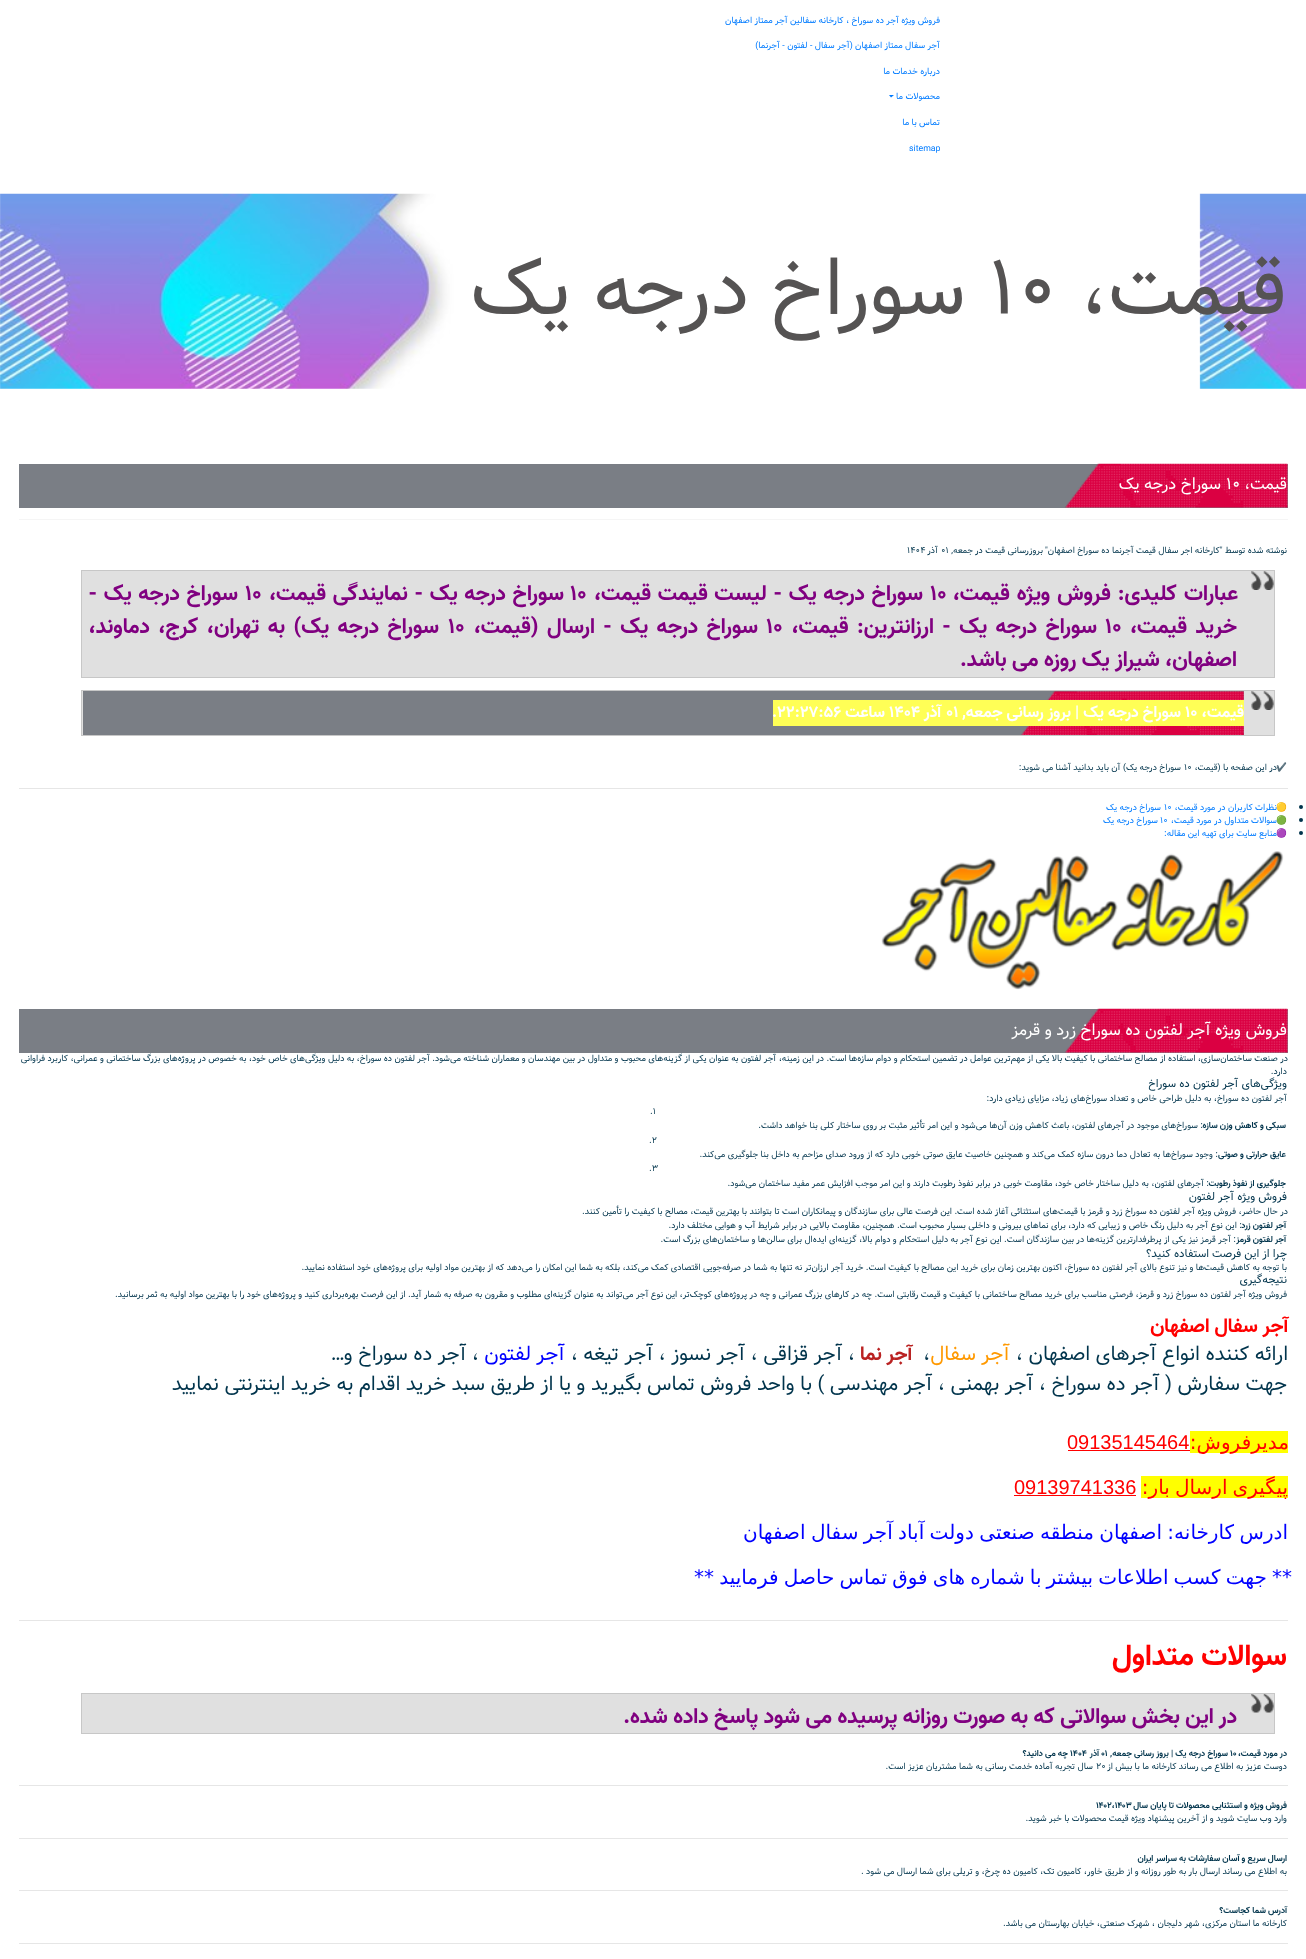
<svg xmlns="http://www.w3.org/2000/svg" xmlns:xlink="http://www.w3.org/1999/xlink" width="1306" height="1959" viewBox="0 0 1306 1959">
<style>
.cls-1{font:8.75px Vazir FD;direction:rtl;fill:#007bff}
.cls-2{font:8.75px Vazir FD;fill:#007bff}
.cls-3{font:78.75px Vazir FD;direction:rtl;fill:#555353}
.cls-4{font:78.75px Vazir FD;fill:#555353}
.cls-5{font:16.25px Vazir FD;direction:rtl;fill:#ffffff}
.cls-6{font:16.25px Vazir FD;fill:#ffffff}
.cls-7{font:8.75px Vazir FD;direction:rtl;fill:#00344c}
.cls-8{font:8.75px Vazir FD;fill:#00344c}
.cls-9{font:bold 21.9px Vazir FD;direction:rtl;fill:#800080}
.cls-10{font:bold 21.9px Vazir FD;fill:#800080}
.cls-11{font:bold 16.25px Vazir FD;direction:rtl;fill:#ffffff}
.cls-12{font:bold 16.25px Vazir FD;fill:#ffffff}
.cls-13{font:8.75px Noto Color Emoji;direction:rtl;fill:#00344c}
.cls-14{font:8.75px Noto Color Emoji;direction:rtl;fill:#007bff}
.cls-15{font:11.25px Vazir FD;direction:rtl;fill:#00344c}
.cls-16{font:bold 8.75px Vazir FD;direction:rtl;fill:#00344c}
.cls-17{font:bold 20px Vazir FD;direction:rtl;fill:#ff0000}
.cls-18{font:20px Vazir FD;direction:rtl;fill:#00344c}
.cls-19{font:20px Vazir FD;direction:rtl;fill:#ff9900}
.cls-20{font:20px Vazir FD;fill:#00344c}
.cls-21{font:bold 20px Vazir FD;direction:rtl;fill:#ba2222}
.cls-22{font:20px Vazir FD;direction:rtl;fill:#0000ff}
.cls-23{font:20px DejaVu Sans;direction:rtl;fill:#ff0000}
.cls-24{font:20px Liberation Sans;fill:#ff0000}
.cls-25{font:20px DejaVu Sans;direction:rtl;fill:#0000ff}
.cls-26{font:bold 30px Vazir FD;direction:rtl;fill:#ff0000}
.cls-27{font:bold 8.75px Vazir FD;fill:#00344c}
</style>
<rect width="100%" height="100%" fill="#ffffff"/>
<path fill="#007bff" d="M889 95H894L891 97.5Z"/>
<image xlink:href="image0.png" x="0" y="193" width="1306" height="196"/>
<rect fill="#f5f5f5" x="19" y="519" width="1269" height="1"/>
<rect fill="#7a7e85" x="19" y="464" width="1269" height="44"/>
<image xlink:href="image1.png" x="1065" y="463" width="223" height="45"/>
<rect fill="#e0e0e0" x="82" y="571" width="1192" height="106"/>
<image xlink:href="image2.png" x="1251" y="571" width="23" height="19"/>
<rect fill="none" stroke="#c7c7c7" x="81.5" y="570.5" width="1193" height="107"/>
<rect fill="#e0e0e0" x="82" y="691" width="1192" height="44"/>
<image xlink:href="image2.png" x="1251" y="691" width="23" height="19"/>
<rect fill="none" stroke="#c7c7c7" x="81.5" y="690.5" width="1193" height="45"/>
<rect fill="#7a7e85" x="83" y="691" width="1161" height="44"/>
<image xlink:href="image3.png" x="1021" y="691" width="223" height="44"/>
<rect fill="#ffff56" x="773" y="700" width="471" height="26"/>
<rect fill="#e6e6e6" x="19" y="788" width="1269" height="1"/>
<circle fill="#00344c" cx="1301" cy="807" r="2"/>
<circle fill="#00344c" cx="1301" cy="820" r="2"/>
<circle fill="#00344c" cx="1301" cy="833" r="2"/>
<image xlink:href="image4.png" x="881" y="851" width="403" height="139"/>
<rect fill="#7a7e85" x="19" y="1009" width="1269" height="44"/>
<image xlink:href="image5.png" x="1065" y="1008" width="223" height="45"/>
<rect fill="#ff0000" x="1068" y="1450" width="122" height="1"/>
<rect fill="#ffff00" x="1190" y="1431" width="98" height="22"/>
<rect fill="#ffff00" x="1141" y="1476" width="147" height="22"/>
<rect fill="#ff0000" x="1014" y="1495" width="122" height="1"/>
<rect fill="#e6e6e6" x="19" y="1620" width="1269" height="1"/>
<rect fill="#e0e0e0" x="82" y="1694" width="1192" height="39"/>
<image xlink:href="image6.png" x="1251" y="1694" width="23" height="19"/>
<rect fill="none" stroke="#c7c7c7" x="81.5" y="1693.5" width="1193" height="40"/>
<rect fill="#e6e6e6" x="19" y="1785" width="1269" height="1"/>
<rect fill="#e6e6e6" x="19" y="1838" width="1269" height="1"/>
<rect fill="#e6e6e6" x="19" y="1890" width="1269" height="1"/>
<rect fill="#e6e6e6" x="19" y="1943" width="1269" height="1"/>
<text class="cls-1" x="940" y="23">فروش ویژه آجر ده سوراخ ، کارخانه سفالین آجر ممتاز اصفهان</text>
<text class="cls-1" x="940" y="48">آجر سفال ممتاز اصفهان (آجر سفال - لفتون - آجرنما)</text>
<text class="cls-1" x="940" y="74">درباره خدمات ما</text>
<text class="cls-1" x="940" y="99">محصولات ما</text>
<text class="cls-1" x="940" y="125">تماس با ما</text>
<text class="cls-2" x="909" y="151">sitemap</text>
<text class="cls-3" x="1287" y="314">قیمت،</text>
<text class="cls-4" x="988" y="314">10</text>
<text class="cls-3" x="966" y="314">سوراخ درجه یک</text>
<text class="cls-5" x="1287" y="489">قیمت،</text>
<text class="cls-6" x="1226" y="489">10</text>
<text class="cls-5" x="1221" y="489">سوراخ درجه یک</text>
<text class="cls-7" x="1287" y="553">نوشته شده توسط "کارخانه اجر سفال قیمت آجرنما ده سوراخ اصفهان"</text>
<text class="cls-7" x="1043" y="553">بروزرسانی قیمت در</text>
<text class="cls-7" x="973" y="553">جمعه,</text>
<text class="cls-8" x="941" y="553">01</text>
<text class="cls-7" x="938" y="553">آذر</text>
<text class="cls-8" x="907" y="553">1404</text>
<text class="cls-9" x="1238" y="600" word-spacing="1.5">عبارات کلیدی: فروش ویژه قیمت،</text>
<text class="cls-10" x="930" y="600">10</text>
<text class="cls-9" x="923" y="600" word-spacing="1.25">سوراخ درجه یک - لیست قیمت قیمت،</text>
<text class="cls-10" x="570" y="600">10</text>
<text class="cls-9" x="564" y="600" word-spacing="1.25">سوراخ درجه یک - نمایندگی قیمت،</text>
<text class="cls-10" x="245" y="600">10</text>
<text class="cls-9" x="238" y="600" word-spacing="1.25">سوراخ درجه یک -</text>
<text class="cls-9" x="1237" y="633" word-spacing="3">خرید قیمت،</text>
<text class="cls-10" x="1105" y="633">10</text>
<text class="cls-9" x="1097" y="633" word-spacing="3">سوراخ درجه یک - ارزانترین: قیمت،</text>
<text class="cls-10" x="766" y="633">10</text>
<text class="cls-9" x="758" y="633" word-spacing="3">سوراخ درجه یک - ارسال (قیمت،</text>
<text class="cls-10" x="448" y="633">10</text>
<text class="cls-9" x="439" y="633" word-spacing="3">سوراخ درجه یک) به تهران، کرج، دماوند،</text>
<text class="cls-9" x="1237" y="666">اصفهان، شیراز یک روزه می باشد.</text>
<text class="cls-11" x="1244" y="717">قیمت،</text>
<text class="cls-12" x="1185" y="717">10</text>
<text class="cls-11" x="1181" y="717">سوراخ درجه یک | بروز رسانی جمعه,</text>
<text class="cls-12" x="946" y="717">01</text>
<text class="cls-11" x="941" y="717">آذر</text>
<text class="cls-12" x="889" y="717">1404</text>
<text class="cls-11" x="885" y="717">ساعت</text>
<text class="cls-12" x="772" y="717">.22:27:56</text>
<text class="cls-7" x="1277" y="770">در این صفحه با (قیمت،</text>
<text class="cls-13" x="1287" y="770">✔️</text>
<text class="cls-8" x="1184" y="770">10</text>
<text class="cls-7" x="1181" y="770">سوراخ درجه یک) آن باید بدانید آشنا می شوید:</text>
<text class="cls-1" x="1277" y="810">نظرات کاربران در مورد قیمت،</text>
<text class="cls-14" x="1287" y="810">🟡</text>
<text class="cls-2" x="1164" y="810">10</text>
<text class="cls-1" x="1161" y="810">سوراخ درجه یک</text>
<text class="cls-1" x="1277" y="823">سوالات متداول در مورد قیمت،</text>
<text class="cls-14" x="1287" y="823">🟢</text>
<text class="cls-2" x="1160" y="823">10</text>
<text class="cls-1" x="1158" y="823">سوراخ درجه یک</text>
<text class="cls-1" x="1277" y="836">منابع سایت برای تهیه این مقاله:</text>
<text class="cls-14" x="1287" y="836">🟣</text>
<text class="cls-5" x="1287" y="1035">فروش ویژه آجر لفتون ده سوراخ زرد و قرمز</text>
<text class="cls-7" x="1288" y="1061">در صنعت ساختمان‌سازی، استفاده از مصالح ساختمانی با کیفیت بالا یکی از مهم‌ترین عوامل در تضمین استحکام و دوام سازه‌ها است. در این زمینه، آجر لفتون به عنوان یکی از گزینه‌های محبوب و متداول در بین مهندسان و معماران شناخته می‌شود. آجر لفتون ده سوراخ، به دلیل ویژگی‌های خاص خود، به خصوص در پروژه‌های بزرگ ساختمانی و عمرانی، کاربرد فراوانی</text>
<text class="cls-7" x="1287" y="1074">دارد.</text>
<text class="cls-15" x="1287" y="1087">ویژگی‌های آجر لفتون ده سوراخ</text>
<text class="cls-7" x="1287" y="1101">آجر لفتون ده سوراخ، به دلیل طراحی خاص و تعداد سوراخ‌های زیاد، مزایای زیادی دارد:</text>
<text class="cls-8" x="650" y="1114">.1</text>
<text class="cls-16" x="1286" y="1128">سبکی و کاهش وزن سازه</text>
<text class="cls-7" x="1203" y="1128">: سوراخ‌های موجود در آجرهای لفتون، باعث کاهش وزن آن‌ها می‌شود و این امر تأثیر مثبت بر روی ساختار کلی بنا خواهد داشت.</text>
<text class="cls-8" x="649" y="1143">.2</text>
<text class="cls-16" x="1286" y="1157">عایق حرارتی و صوتی</text>
<text class="cls-7" x="1218" y="1157">: وجود سوراخ‌ها به تعادل دما درون سازه کمک می‌کند و همچنین خاصیت عایق صوتی خوبی دارد که از ورود صدای مزاحم به داخل بنا جلوگیری می‌کند.</text>
<text class="cls-8" x="649" y="1171">.3</text>
<text class="cls-16" x="1286" y="1186">جلوگیری از نفوذ رطوبت</text>
<text class="cls-7" x="1209" y="1186">: آجرهای لفتون، به دلیل ساختار خاص خود، مقاومت خوبی در برابر نفوذ رطوبت دارند و این امر موجب افزایش عمر مفید ساختمان می‌شود.</text>
<text class="cls-15" x="1287" y="1200">فروش ویژه آجر لفتون</text>
<text class="cls-7" x="1288" y="1214">در حال حاضر، فروش ویژه آجر لفتون ده سوراخ زرد و قرمز با قیمت‌های استثنائی آغاز شده است. این فرصت عالی برای سازندگان و پیمانکاران است تا بتوانند با بهترین قیمت، مصالح با کیفیت را تأمین کنند.</text>
<text class="cls-16" x="1286" y="1228">آجر لفتون زرد</text>
<text class="cls-7" x="1242" y="1228">: این نوع آجر به دلیل رنگ خاص و زیبایی که دارد، برای نماهای بیرونی و داخلی بسیار محبوب است. همچنین، مقاومت بالایی در برابر شرایط آب و هوایی مختلف دارد.</text>
<text class="cls-16" x="1286" y="1242">آجر لفتون قرمز</text>
<text class="cls-7" x="1236" y="1242">: آجر قرمز نیز یکی از پرطرفدارترین گزینه‌ها در بین سازندگان است. این نوع آجر به دلیل استحکام و دوام بالا، گزینه‌ای ایده‌ال برای سالن‌ها و ساختمان‌های بزرگ است.</text>
<text class="cls-15" x="1287" y="1257">چرا از این فرصت استفاده کنید؟</text>
<text class="cls-7" x="1287" y="1270">با توجه به کاهش قیمت‌ها و نیز تنوع بالای آجر لفتون ده سوراخ، اکنون بهترین زمان برای خرید این مصالح با کیفیت است. خرید آجر ارزان‌تر نه تنها به شما در صرفه‌جویی اقتصادی کمک می‌کند، بلکه به شما این امکان را می‌دهد که از بهترین مواد اولیه برای پروژه‌های خود استفاده نمایید.</text>
<text class="cls-15" x="1287" y="1283">نتیجه‌گیری</text>
<text class="cls-7" x="1287" y="1297">فروش ویژه آجر لفتون ده سوراخ زرد و قرمز، فرصتی مناسب برای خرید مصالح ساختمانی با کیفیت و قیمت رقابتی است. چه در کارهای بزرگ عمرانی و چه در پروژه‌های کوچک‌تر، این نوع آجر می‌تواند به عنوان گزینه‌ای مطلوب و مقرون به صرفه به شمار آید. از این فرصت بهره‌برداری کنید و پروژه‌های خود را با بهترین مواد اولیه به ثمر برسانید.</text>
<text class="cls-17" x="1288" y="1332">آجر سفال اصفهان</text>
<text class="cls-18" x="1288" y="1360">ارائه کننده انواع آجرهای اصفهان ،</text>
<text class="cls-19" x="1010" y="1360">آجر سفال</text>
<text class="cls-20" x="923" y="1360">،</text>
<text class="cls-21" x="912" y="1360">آجر نما</text>
<text class="cls-18" x="855" y="1360">، آجر قزاقی ، آجر نسوز ، آجر تیغه ،</text>
<text class="cls-22" x="565" y="1360">آجر لفتون</text>
<text class="cls-18" x="479" y="1360">، آجر ده سوراخ و…</text>
<text class="cls-18" x="1287" y="1390">جهت سفارش ( آجر ده سوراخ ، آجر بهمنی ، آجر مهندسی ) با واحد فروش تماس بگیرید و یا از طریق سبد خرید اقدام به خرید اینترنتی نمایید</text>
<text class="cls-23" x="1289" y="1449">مديرفروش:</text>
<text class="cls-24" x="1067" y="1449">09135145464</text>
<text class="cls-23" x="1288" y="1494" word-spacing="-1.25">پیگیری ارسال بار:</text>
<text class="cls-24" x="1014" y="1494">09139741336</text>
<text class="cls-25" x="1288" y="1539" word-spacing="-1">ادرس کارخانه: اصفهان منطقه صنعتی دولت آباد آجر سفال اصفهان</text>
<text class="cls-25" x="1292" y="1584" word-spacing="-1.25">** جهت کسب اطلاعات بيشتر با شماره های فوق تماس حاصل فرمایید **</text>
<text class="cls-26" x="1287" y="1665">سوالات متداول</text>
<text class="cls-9" x="1237" y="1723">در این بخش سوالاتی که به صورت روزانه پرسیده می شود پاسخ داده شده.</text>
<text class="cls-16" x="1287" y="1756">در مورد قیمت،</text>
<text class="cls-27" x="1230" y="1756">10</text>
<text class="cls-16" x="1228" y="1756">سوراخ درجه یک | بروز رسانی جمعه,</text>
<text class="cls-27" x="1101" y="1756">01</text>
<text class="cls-16" x="1099" y="1756">آذر</text>
<text class="cls-27" x="1070" y="1756">1404</text>
<text class="cls-16" x="1068" y="1756">چه می دانید؟</text>
<text class="cls-7" x="1287" y="1769">دوست عزیز به اطلاع می رساند کارخانه ما با بیش از</text>
<text class="cls-8" x="1096" y="1769">20</text>
<text class="cls-7" x="1093" y="1769">سال تجربه آماده خدمت رسانی به شما مشتریان عزیز است.</text>
<text class="cls-16" x="1287" y="1808">فروش ویژه و استثنایی محصولات تا پایان سال</text>
<text class="cls-27" x="1096" y="1808">۱۴۰۲،۱۴۰۳</text>
<text class="cls-7" x="1287" y="1821">وارد وب سایت شوید و از آخرین پیشنهاد ویژه قیمت محصولات با خبر شوید.</text>
<text class="cls-16" x="1287" y="1861">ارسال سریع و آسان سفارشات به سراسر ایران</text>
<text class="cls-7" x="1287" y="1874">به اطلاع می رساند ارسال بار به طور روزانه و از طریق خاور، کامیون تک، کامیون ده چرخ، و تریلی برای شما ارسال می شود .</text>
<text class="cls-16" x="1287" y="1913">آدرس شما کجاست؟</text>
<text class="cls-7" x="1287" y="1926">کارخانه ما استان مرکزی، شهر دلیجان ، شهرک صنعتی، خیابان بهارستان می باشد.</text>
</svg>
